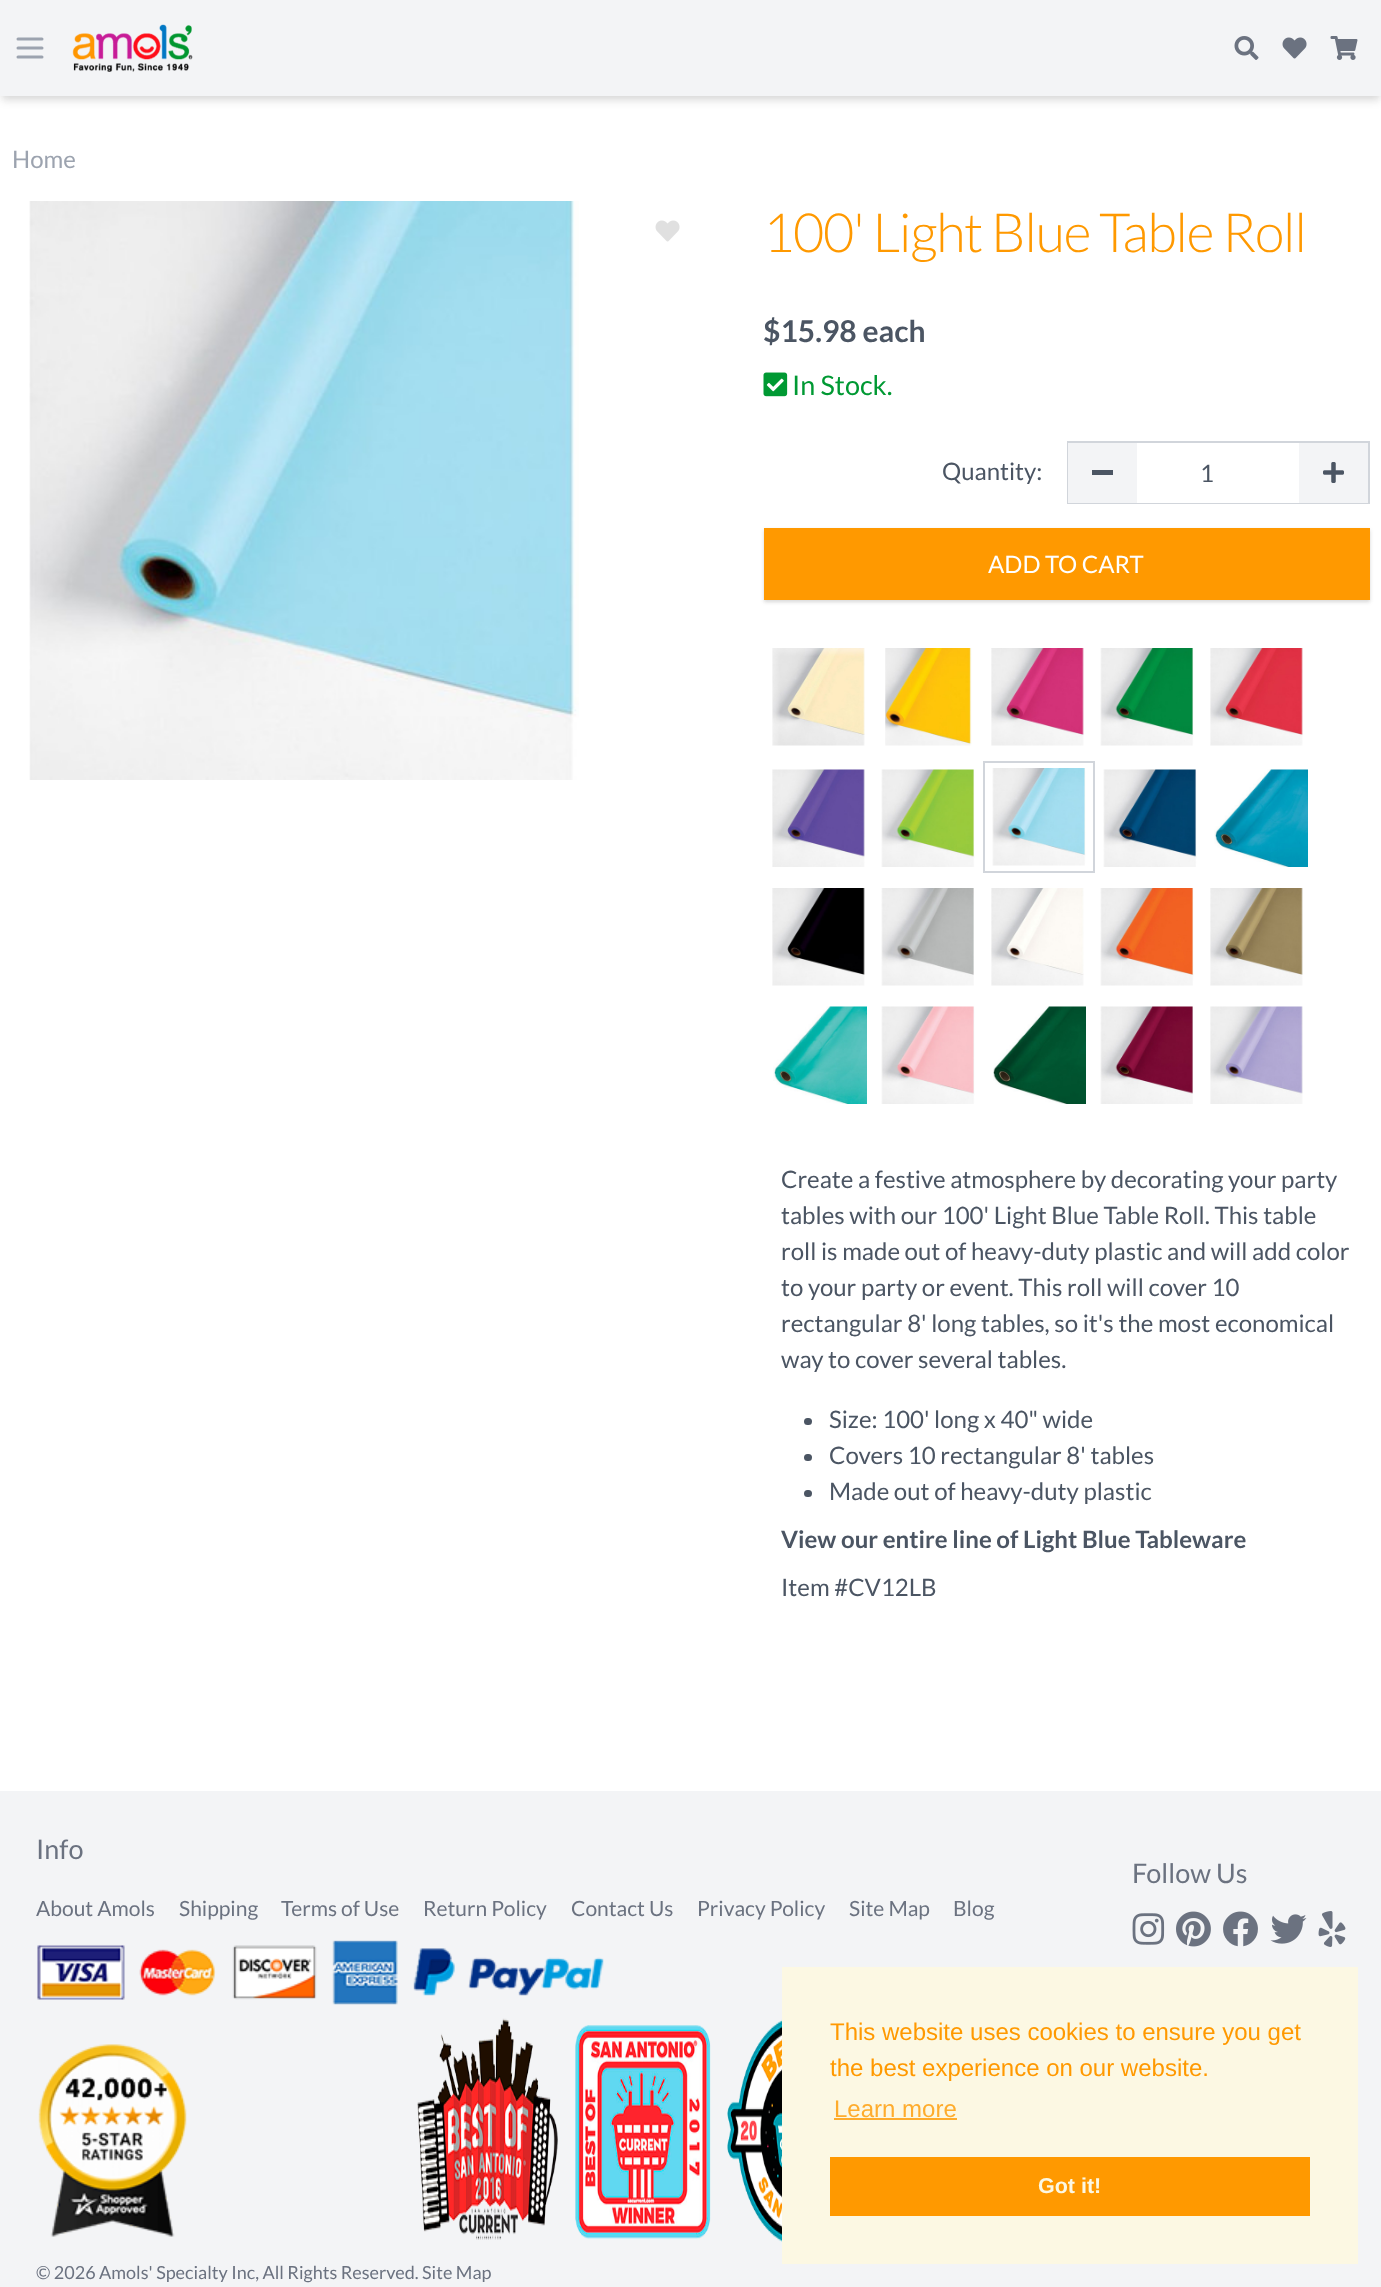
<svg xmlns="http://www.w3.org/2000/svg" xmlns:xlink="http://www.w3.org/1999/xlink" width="1381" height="2287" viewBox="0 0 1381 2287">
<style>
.cls-1{font:24px Lato;fill:#9ca3af}
.cls-2{font:300 54px Lato;letter-spacing:-1.35px;fill:#ff9900}
.cls-3{font:bold 30px Lato;fill:#4b5563}
.cls-4{font:27px Lato;fill:#009933}
.cls-5{font:24px Lato;fill:#4b5563}
.cls-6{font:24px Lato;fill:#ffffff}
.cls-7{font:bold 24px Lato;fill:#4b5563}
.cls-8{font:27px Lato;fill:#6b7280}
.cls-9{font:21px Lato;fill:#6b7280}
.cls-10{font:18px Lato;fill:#6b7280}
.cls-11{font:24px Liberation Sans;fill:#ff9900}
.cls-12{font:24px Liberation Sans;fill:#feac2d}
.cls-13{font:bold 21.5px Liberation Sans;fill:#fcf8e3}
</style>
<rect width="100%" height="100%" fill="#ffffff"/>
<rect fill="#000000" fill-opacity="0.06" filter="blur(3px)" x="2" y="5" width="1378" height="93"/>
<rect fill="#000000" fill-opacity="0.1" filter="blur(4.5px)" x="2" y="8" width="1378" height="93"/>
<rect fill="#f3f4f6" x="0" y="0" width="1381" height="96"/>
<path fill="none" stroke="#9ca3af" stroke-width="3" stroke-linecap="round" stroke-linejoin="round" d="M18 39H42M18 48H42M18 57H42"/>
<image xlink:href="image0.png" x="72" y="24" width="121" height="48"/>
<image xlink:href="image1.png" x="1234" y="36" width="25" height="24"/>
<image xlink:href="image2.png" x="1282" y="37" width="25" height="22"/>
<image xlink:href="image3.png" x="1330" y="36" width="28" height="24"/>
<image xlink:href="image4.png" x="29" y="201" width="550" height="579"/>
<image xlink:href="image5.png" x="655" y="220" width="25" height="22"/>
<image xlink:href="image6.png" x="763" y="372" width="25" height="25"/>
<rect fill="none" stroke="#d1d5db" stroke-width="2" x="1068" y="442" width="301" height="61"/>
<rect fill="#f3f4f6" x="1068" y="443" width="69" height="60"/>
<rect fill="#4b5563" x="1092" y="470" width="21" height="5"/>
<rect fill="#ffffff" x="1137" y="502" width="162" height="1"/>
<rect fill="#f3f4f6" x="1299" y="443" width="69" height="60"/>
<image xlink:href="image7.png" x="1323" y="462" width="21" height="21"/>
<rect fill="#000000" fill-opacity="0.06" filter="blur(1.5px)" x="764" y="530" width="606" height="72"/>
<rect fill="#000000" fill-opacity="0.1" filter="blur(2px)" x="764" y="530" width="606" height="72"/>
<rect fill="#ff9900" x="764" y="528" width="606" height="72"/>
<image xlink:href="image8.png" x="772" y="648" width="93" height="98"/>
<image xlink:href="image9.png" x="885" y="648" width="87" height="98"/>
<image xlink:href="image10.png" x="991" y="648" width="93" height="98"/>
<image xlink:href="image11.png" x="1100" y="648" width="94" height="98"/>
<image xlink:href="image12.png" x="1210" y="648" width="93" height="98"/>
<image xlink:href="image13.png" x="772" y="769" width="93" height="98"/>
<image xlink:href="image14.png" x="881" y="769" width="94" height="98"/>
<rect fill="none" stroke="#d1d5db" stroke-width="2" x="984" y="762" width="110" height="110"/>
<image xlink:href="image15.png" x="992" y="768" width="94" height="98"/>
<image xlink:href="image16.png" x="1103" y="769" width="94" height="98"/>
<image xlink:href="image17.png" x="1214" y="769" width="94" height="98"/>
<image xlink:href="image18.png" x="772" y="888" width="93" height="98"/>
<image xlink:href="image19.png" x="881" y="888" width="93" height="98"/>
<image xlink:href="image20.png" x="991" y="888" width="93" height="98"/>
<image xlink:href="image21.png" x="1100" y="888" width="94" height="98"/>
<image xlink:href="image22.png" x="1210" y="888" width="93" height="98"/>
<image xlink:href="image23.png" x="773" y="1006" width="94" height="98"/>
<image xlink:href="image24.png" x="881" y="1006" width="94" height="98"/>
<image xlink:href="image25.png" x="993" y="1006" width="93" height="98"/>
<image xlink:href="image26.png" x="1100" y="1006" width="93" height="98"/>
<image xlink:href="image27.png" x="1210" y="1006" width="93" height="98"/>
<rect fill="#4b5563" x="804" y="1418" width="8" height="7" rx="3.5"/>
<rect fill="#4b5563" x="804" y="1454" width="8" height="7" rx="3.5"/>
<rect fill="#4b5563" x="804" y="1490" width="8" height="7" rx="3.5"/>
<rect fill="#f3f4f6" x="0" y="1791" width="1381" height="496"/>
<image xlink:href="image28.png" x="37" y="1940" width="361" height="65"/>
<image xlink:href="image29.png" x="413" y="1948" width="191" height="48"/>
<image xlink:href="image30.png" x="1132" y="1913" width="33" height="32"/>
<image xlink:href="image31.png" x="1176" y="1911" width="35" height="36"/>
<image xlink:href="image32.png" x="1223" y="1911" width="35" height="36"/>
<image xlink:href="image33.png" x="1270" y="1914" width="37" height="30"/>
<image xlink:href="image34.png" x="1318" y="1911" width="28" height="36"/>
<image xlink:href="image35.png" x="38" y="2044" width="149" height="193"/>
<image xlink:href="image36.png" x="417" y="2018" width="141" height="222"/>
<image xlink:href="image37.png" x="575" y="2025" width="136" height="214"/>
<image xlink:href="image38.png" x="727" y="2019" width="55" height="223"/>
<rect fill="#fcf8e3" x="782" y="1967" width="576" height="297"/>
<rect fill="#feac2d" x="834" y="2118" width="123" height="2"/>
<rect fill="#ff9900" x="830" y="2157" width="480" height="59"/>
<text class="cls-1" x="12" y="168">Home</text>
<text class="cls-2" x="763" y="252">100' Light Blue Table Roll</text>
<text class="cls-3" x="763" y="342">$15.98 each</text>
<text class="cls-4" x="792" y="395">In Stock.</text>
<text class="cls-5" x="942" y="480">Quantity:</text>
<text class="cls-5" x="1200" y="482">1</text>
<text class="cls-6" x="988" y="573">ADD TO CART</text>
<text class="cls-5"><tspan x="781" y="1188">Create a festive atmosphere by decorating your party</tspan><tspan x="781" y="1224">tables with our 100' Light Blue Table Roll. This table</tspan><tspan x="781" y="1260">roll is made out of heavy-duty plastic and will add color</tspan><tspan x="781" y="1296">to your party or event. This roll will cover 10</tspan><tspan x="781" y="1332">rectangular 8' long tables, so it's the most economical</tspan><tspan x="781" y="1368">way to cover several tables.</tspan></text>
<text class="cls-5"><tspan x="829" y="1428">Size: 100' long x 40" wide</tspan><tspan x="829" y="1464">Covers 10 rectangular 8' tables</tspan><tspan x="829" y="1500">Made out of heavy-duty plastic</tspan></text>
<text class="cls-7" x="781" y="1548">View our entire line of Light Blue Tableware</text>
<text class="cls-5" x="781" y="1596">Item #CV12LB</text>
<text class="cls-8" x="36" y="1859">Info</text>
<text class="cls-9" x="36" y="1916">About Amols</text>
<text class="cls-9" x="179" y="1916">Shipping</text>
<text class="cls-9" x="281" y="1916">Terms of Use</text>
<text class="cls-9" x="423" y="1916">Return Policy</text>
<text class="cls-9" x="571" y="1916">Contact Us</text>
<text class="cls-9" x="697" y="1916">Privacy Policy</text>
<text class="cls-9" x="849" y="1916">Site Map</text>
<text class="cls-9" x="953" y="1916">Blog</text>
<text class="cls-8" x="1132" y="1883">Follow Us</text>
<text class="cls-10" x="36" y="2279">© 2026 Amols' Specialty Inc, All Rights Reserved. Site Map</text>
<text class="cls-11"><tspan x="830" y="2040">This website uses cookies to ensure you get</tspan><tspan x="830" y="2076">the best experience on our website.</tspan></text>
<text class="cls-12" x="834" y="2117">Learn more</text>
<text class="cls-13" x="1038" y="2193">Got it!</text>
</svg>
